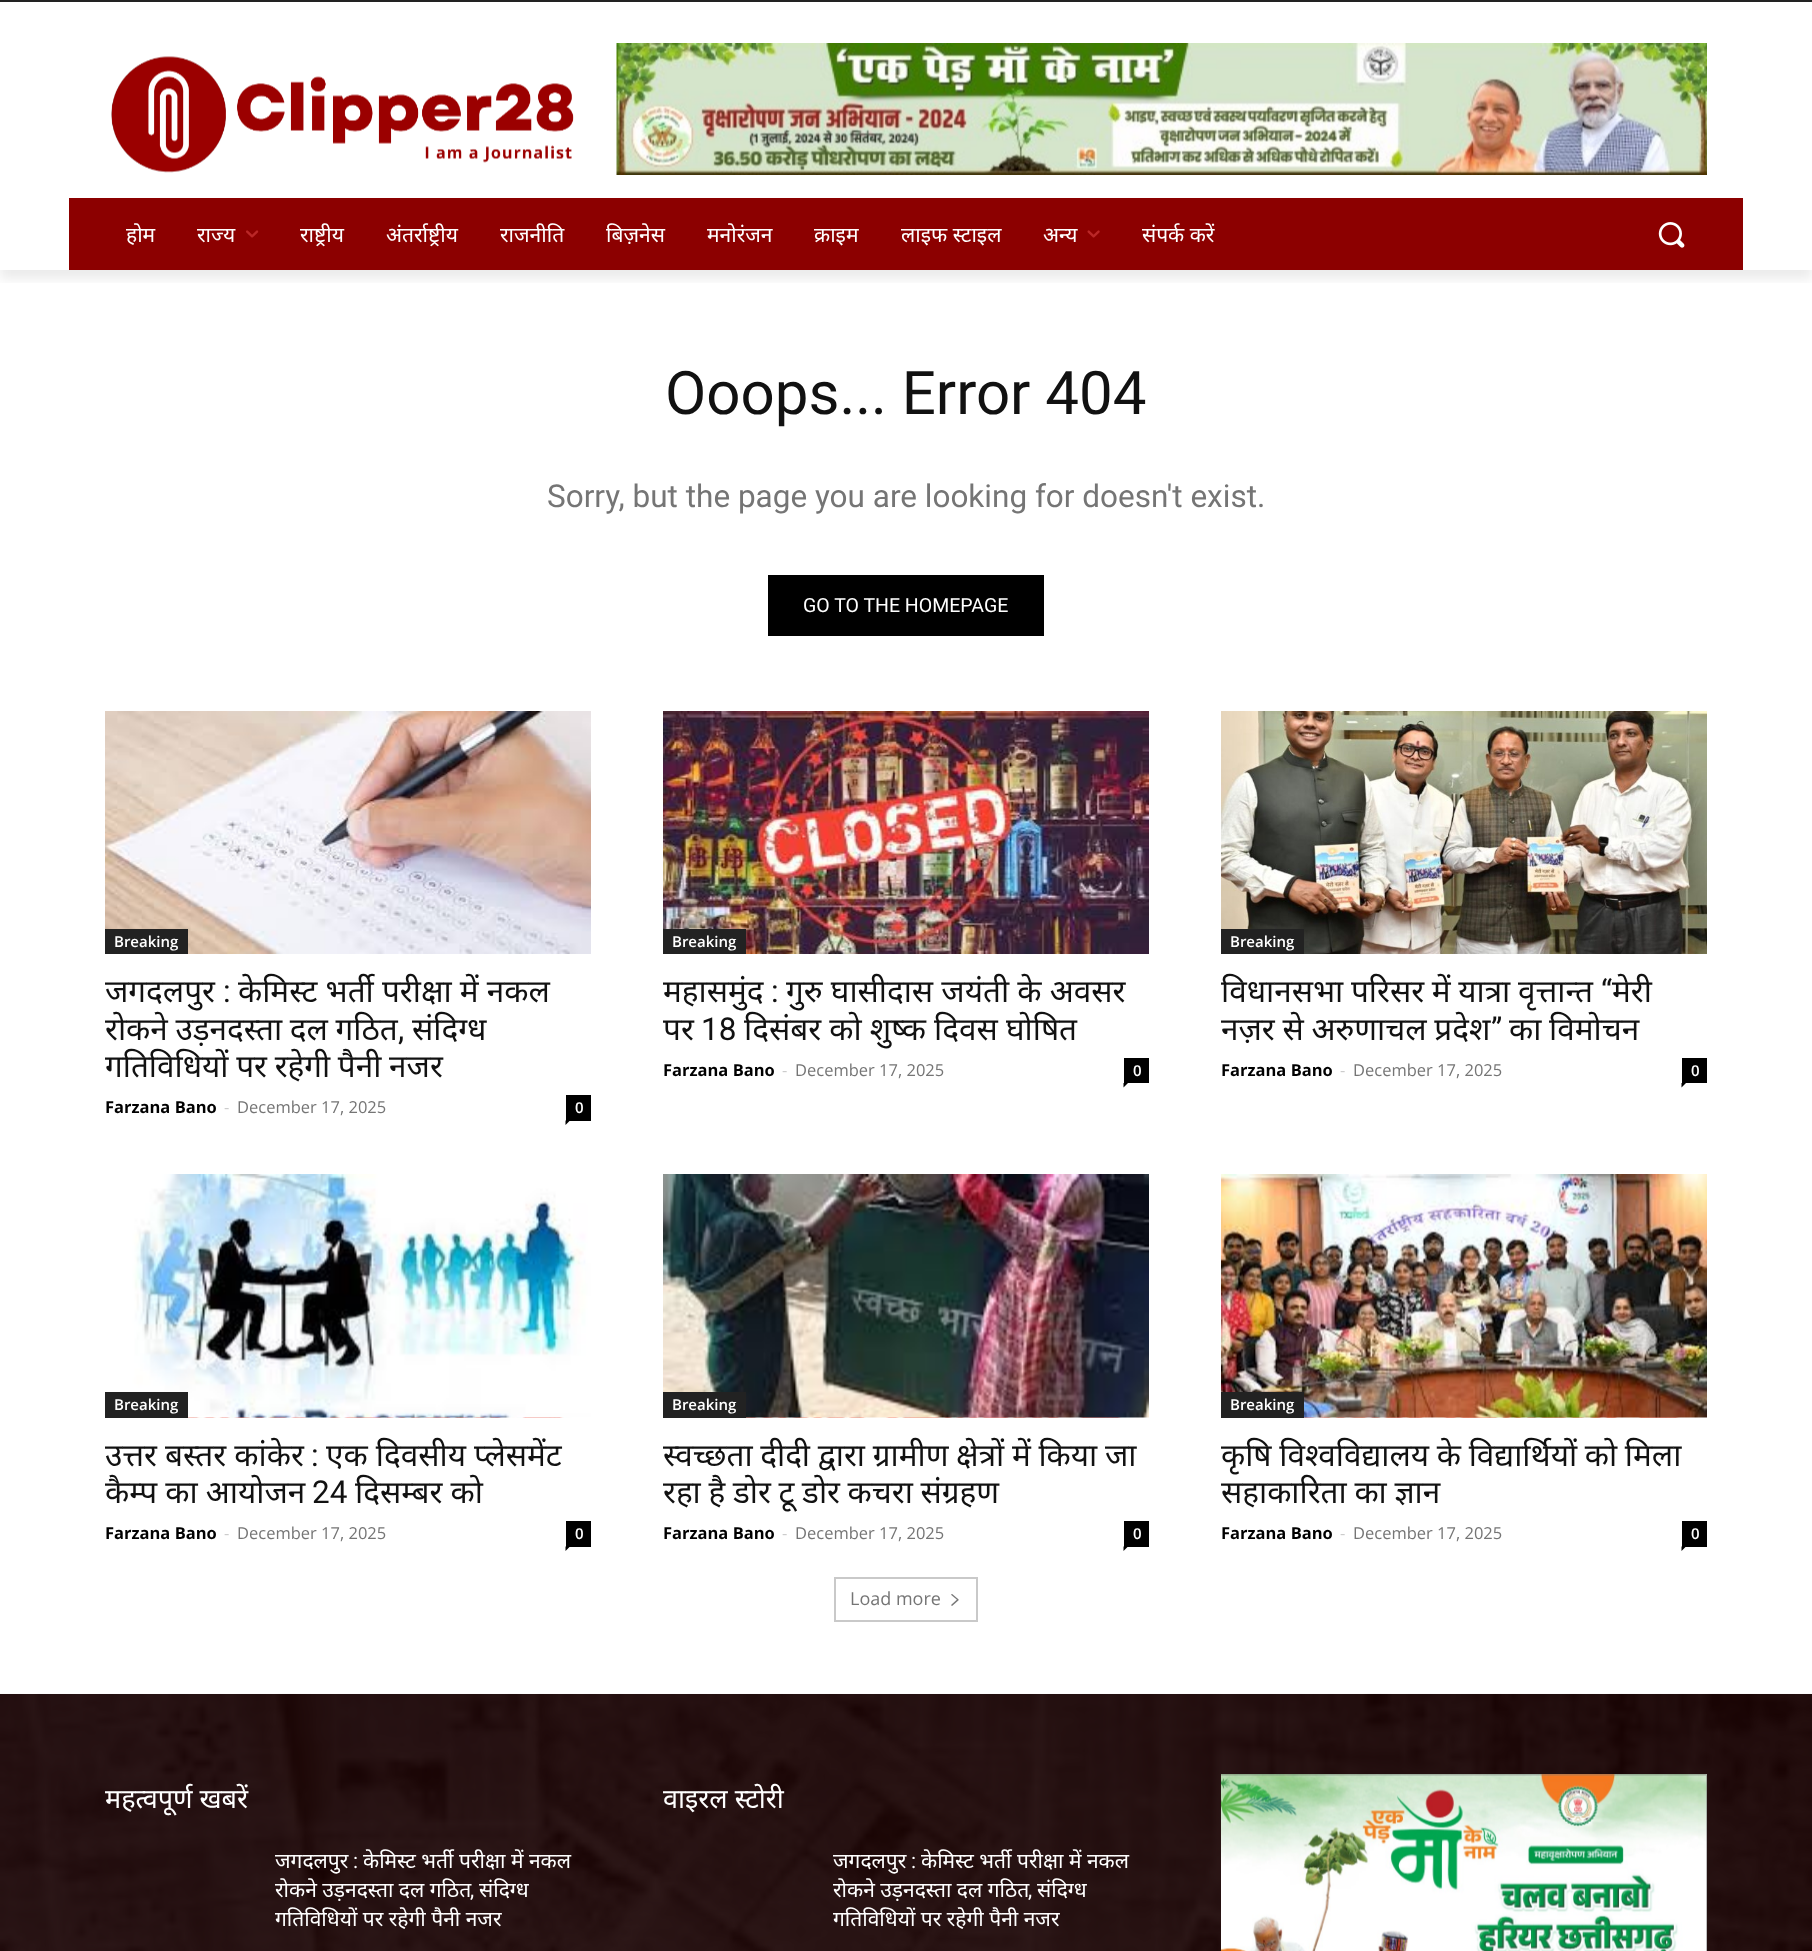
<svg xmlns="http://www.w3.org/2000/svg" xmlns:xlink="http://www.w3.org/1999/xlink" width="1812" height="1951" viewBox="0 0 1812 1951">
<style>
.cls-1{font:21px Noto Sans;fill:#ffffff}
.cls-2{font:60px Roboto;fill:#111111}
.cls-3{font:31.5px Roboto;fill:#757575}
.cls-4{font:19.5px Roboto;fill:#ffffff}
.cls-5{font:600 15px Open Sans;fill:#ffffff}
.cls-6{font:31.5px Noto Sans;fill:#111111}
.cls-7{font:31.5px Roboto;fill:#111111}
.cls-8{font:bold 16.5px Open Sans;fill:#000000}
.cls-9{font:16.5px Open Sans;fill:#cccccc}
.cls-10{font:16.5px Open Sans;fill:#757575}
.cls-11{font:18px Open Sans;fill:#757575}
.cls-12{font:27px Noto Sans;fill:#ffffff}
.cls-13{font:21px Roboto;fill:#ffffff}
</style>
<defs>
<clipPath id="clip1"><rect x="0" y="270" width="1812" height="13"/></clipPath>
</defs>
<rect width="100%" height="100%" fill="#ffffff"/>
<rect fill="#222222" x="0" y="0" width="1812" height="2"/>
<image xlink:href="image0.png" x="111" y="56" width="463" height="117"/>
<image xlink:href="image1.png" x="616" y="43" width="1091" height="132"/>
<rect fill="#8c0000" x="69" y="198" width="1674" height="72"/>
<g clip-path="url(#clip1)">
<rect fill="#000000" fill-opacity="0.08" filter="blur(6px)" x="0" y="9" width="1812" height="270"/>
</g>
<image xlink:href="image2.png" x="246" y="230" width="13" height="8"/>
<image xlink:href="image3.png" x="1087" y="230" width="13" height="8"/>
<image xlink:href="image4.png" x="1658" y="222" width="27" height="26"/>
<rect fill="#000000" x="768" y="575" width="276" height="61"/>
<image xlink:href="image5.png" x="105" y="711" width="486" height="243"/>
<rect fill="#222222" x="105" y="929" width="83" height="25"/>
<rect fill="#000000" x="566" y="1095" width="25" height="26"/>
<path fill="#000000" d="M565.5 1120.5H570L565.5 1125Z"/>
<image xlink:href="image6.png" x="663" y="711" width="486" height="243"/>
<rect fill="#222222" x="663" y="929" width="83" height="25"/>
<rect fill="#000000" x="1124" y="1058" width="25" height="25"/>
<path fill="#000000" d="M1123.5 1083H1128L1123.5 1087.5Z"/>
<image xlink:href="image7.png" x="1221" y="711" width="486" height="243"/>
<rect fill="#222222" x="1221" y="929" width="83" height="25"/>
<rect fill="#000000" x="1682" y="1058" width="25" height="25"/>
<path fill="#000000" d="M1681.5 1083H1686L1681.5 1087.5Z"/>
<image xlink:href="image9.png" x="188" y="1417" width="403" height="1"/>
<image xlink:href="image8.png" x="105" y="1174" width="486" height="244"/>
<rect fill="#222222" x="105" y="1392" width="83" height="26"/>
<rect fill="#000000" x="566" y="1521" width="25" height="26"/>
<path fill="#000000" d="M565.5 1546.5H570L565.5 1551Z"/>
<image xlink:href="image9.png" x="746" y="1417" width="403" height="1"/>
<image xlink:href="image10.png" x="663" y="1174" width="486" height="244"/>
<rect fill="#222222" x="663" y="1392" width="83" height="26"/>
<rect fill="#000000" x="1124" y="1521" width="25" height="26"/>
<path fill="#000000" d="M1123.5 1546.5H1128L1123.5 1551Z"/>
<image xlink:href="image9.png" x="1304" y="1417" width="403" height="1"/>
<image xlink:href="image11.png" x="1221" y="1174" width="486" height="244"/>
<rect fill="#222222" x="1221" y="1392" width="83" height="26"/>
<rect fill="#000000" x="1682" y="1521" width="25" height="26"/>
<path fill="#000000" d="M1681.5 1546.5H1686L1681.5 1551Z"/>
<rect fill="none" stroke="#c9c9c9" stroke-width="2" x="835" y="1578" width="142" height="43"/>
<image xlink:href="image12.png" x="951" y="1594" width="8" height="12"/>
<rect fill="#190200" x="0" y="1694" width="1812" height="257"/>
<image xlink:href="image13.png" x="0" y="1693" width="1812" height="258"/>
<image xlink:href="image14.png" x="1221" y="1774" width="486" height="177"/>
<text class="cls-1" x="126" y="242">होम</text>
<text class="cls-1" x="197" y="242">राज्य</text>
<text class="cls-1" x="300" y="242">राष्ट्रीय</text>
<text class="cls-1" x="386" y="242">अंतर्राष्ट्रीय</text>
<text class="cls-1" x="500" y="242">राजनीति</text>
<text class="cls-1" x="606" y="242">बिज़नेस</text>
<text class="cls-1" x="707" y="242">मनोरंजन</text>
<text class="cls-1" x="814" y="242">क्राइम</text>
<text class="cls-1" x="901" y="242">लाइफ स्टाइल</text>
<text class="cls-1" x="1043" y="242">अन्य</text>
<text class="cls-1" x="1142" y="242">संपर्क करें</text>
<text class="cls-2" x="665" y="414">Ooops... Error 404</text>
<text class="cls-3" x="547" y="507">Sorry, but the page you are looking for doesn't exist.</text>
<text class="cls-4" x="803" y="612">GO TO THE HOMEPAGE</text>
<text class="cls-5" x="114" y="947">Breaking</text>
<text class="cls-6" x="105" y="1002">जगदलपुर</text>
<text class="cls-7" x="223" y="1002">:</text>
<text class="cls-6" x="238" y="1002">केमिस्ट भर्ती परीक्षा में नकल</text>
<text class="cls-6" x="105" y="1040" word-spacing="-0.5">रोकने उड़नदस्ता दल गठित</text>
<text class="cls-7" x="398" y="1040">,</text>
<text class="cls-6" x="412" y="1040">संदिग्ध</text>
<text class="cls-6" x="105" y="1077" word-spacing="-0.5">गतिविधियों पर रहेगी पैनी नजर</text>
<text class="cls-8" x="105" y="1113">Farzana Bano</text>
<text class="cls-9" x="224" y="1113">-</text>
<text class="cls-10" x="237" y="1113">December 17, 2025</text>
<text class="cls-5" x="575" y="1113">0</text>
<text class="cls-5" x="672" y="947">Breaking</text>
<text class="cls-6" x="663" y="1002">महासमुंद</text>
<text class="cls-7" x="771" y="1002">:</text>
<text class="cls-6" x="786" y="1002">गुरु घासीदास जयंती के अवसर</text>
<text class="cls-6" x="663" y="1040">पर</text>
<text class="cls-7" x="701" y="1040">18</text>
<text class="cls-6" x="744" y="1040">दिसंबर को शुष्क दिवस घोषित</text>
<text class="cls-8" x="663" y="1076">Farzana Bano</text>
<text class="cls-9" x="782" y="1076">-</text>
<text class="cls-10" x="795" y="1076">December 17, 2025</text>
<text class="cls-5" x="1133" y="1076">0</text>
<text class="cls-5" x="1230" y="947">Breaking</text>
<text class="cls-6" x="1221" y="1002" word-spacing="-0.5">विधानसभा परिसर में यात्रा वृत्तान्त</text>
<text class="cls-7" x="1601" y="1002">“</text>
<text class="cls-6" x="1612" y="1002">मेरी</text>
<text class="cls-6" x="1221" y="1040" word-spacing="-0.5">नज़र से अरुणाचल प्रदेश</text>
<text class="cls-7" x="1491" y="1040">”</text>
<text class="cls-6" x="1509" y="1040" word-spacing="-0.5">का विमोचन</text>
<text class="cls-8" x="1221" y="1076">Farzana Bano</text>
<text class="cls-9" x="1340" y="1076">-</text>
<text class="cls-10" x="1353" y="1076">December 17, 2025</text>
<text class="cls-5" x="1691" y="1076">0</text>
<text class="cls-5" x="114" y="1410">Breaking</text>
<text class="cls-6" x="105" y="1466">उत्तर बस्तर कांकेर</text>
<text class="cls-7" x="311" y="1466">:</text>
<text class="cls-6" x="326" y="1466">एक दिवसीय प्लेसमेंट</text>
<text class="cls-6" x="105" y="1503">कैम्प का आयोजन</text>
<text class="cls-7" x="312" y="1503">24</text>
<text class="cls-6" x="355" y="1503">दिसम्बर को</text>
<text class="cls-8" x="105" y="1539">Farzana Bano</text>
<text class="cls-9" x="224" y="1539">-</text>
<text class="cls-10" x="237" y="1539">December 17, 2025</text>
<text class="cls-5" x="575" y="1539">0</text>
<text class="cls-5" x="672" y="1410">Breaking</text>
<text class="cls-6"><tspan x="663" y="1466" word-spacing="-0.5">स्वच्छता दीदी द्वारा ग्रामीण क्षेत्रों में किया जा</tspan><tspan x="663" y="1503" word-spacing="-0.5">रहा है डोर टू डोर कचरा संग्रहण</tspan></text>
<text class="cls-8" x="663" y="1539">Farzana Bano</text>
<text class="cls-9" x="782" y="1539">-</text>
<text class="cls-10" x="795" y="1539">December 17, 2025</text>
<text class="cls-5" x="1133" y="1539">0</text>
<text class="cls-5" x="1230" y="1410">Breaking</text>
<text class="cls-6"><tspan x="1221" y="1466" word-spacing="-0.5">कृषि विश्वविद्यालय के विद्यार्थियों को मिला</tspan><tspan x="1221" y="1503" word-spacing="-0.5">सहाकारिता का ज्ञान</tspan></text>
<text class="cls-8" x="1221" y="1539">Farzana Bano</text>
<text class="cls-9" x="1340" y="1539">-</text>
<text class="cls-10" x="1353" y="1539">December 17, 2025</text>
<text class="cls-5" x="1691" y="1539">0</text>
<text class="cls-11" x="850" y="1605">Load more</text>
<text class="cls-12" x="105" y="1808">महत्वपूर्ण खबरें</text>
<text class="cls-1" x="275" y="1868">जगदलपुर</text>
<text class="cls-13" x="353" y="1868">:</text>
<text class="cls-1" x="363" y="1868">केमिस्ट भर्ती परीक्षा में नकल</text>
<text class="cls-1" x="275" y="1897">रोकने उड़नदस्ता दल गठित</text>
<text class="cls-13" x="470" y="1897">,</text>
<text class="cls-1" x="479" y="1897">संदिग्ध</text>
<text class="cls-1" x="275" y="1926">गतिविधियों पर रहेगी पैनी नजर</text>
<text class="cls-12" x="663" y="1808">वाइरल स्टोरी</text>
<text class="cls-1" x="833" y="1868">जगदलपुर</text>
<text class="cls-13" x="911" y="1868">:</text>
<text class="cls-1" x="921" y="1868">केमिस्ट भर्ती परीक्षा में नकल</text>
<text class="cls-1" x="833" y="1897">रोकने उड़नदस्ता दल गठित</text>
<text class="cls-13" x="1028" y="1897">,</text>
<text class="cls-1" x="1037" y="1897">संदिग्ध</text>
<text class="cls-1" x="833" y="1926">गतिविधियों पर रहेगी पैनी नजर</text>
</svg>
